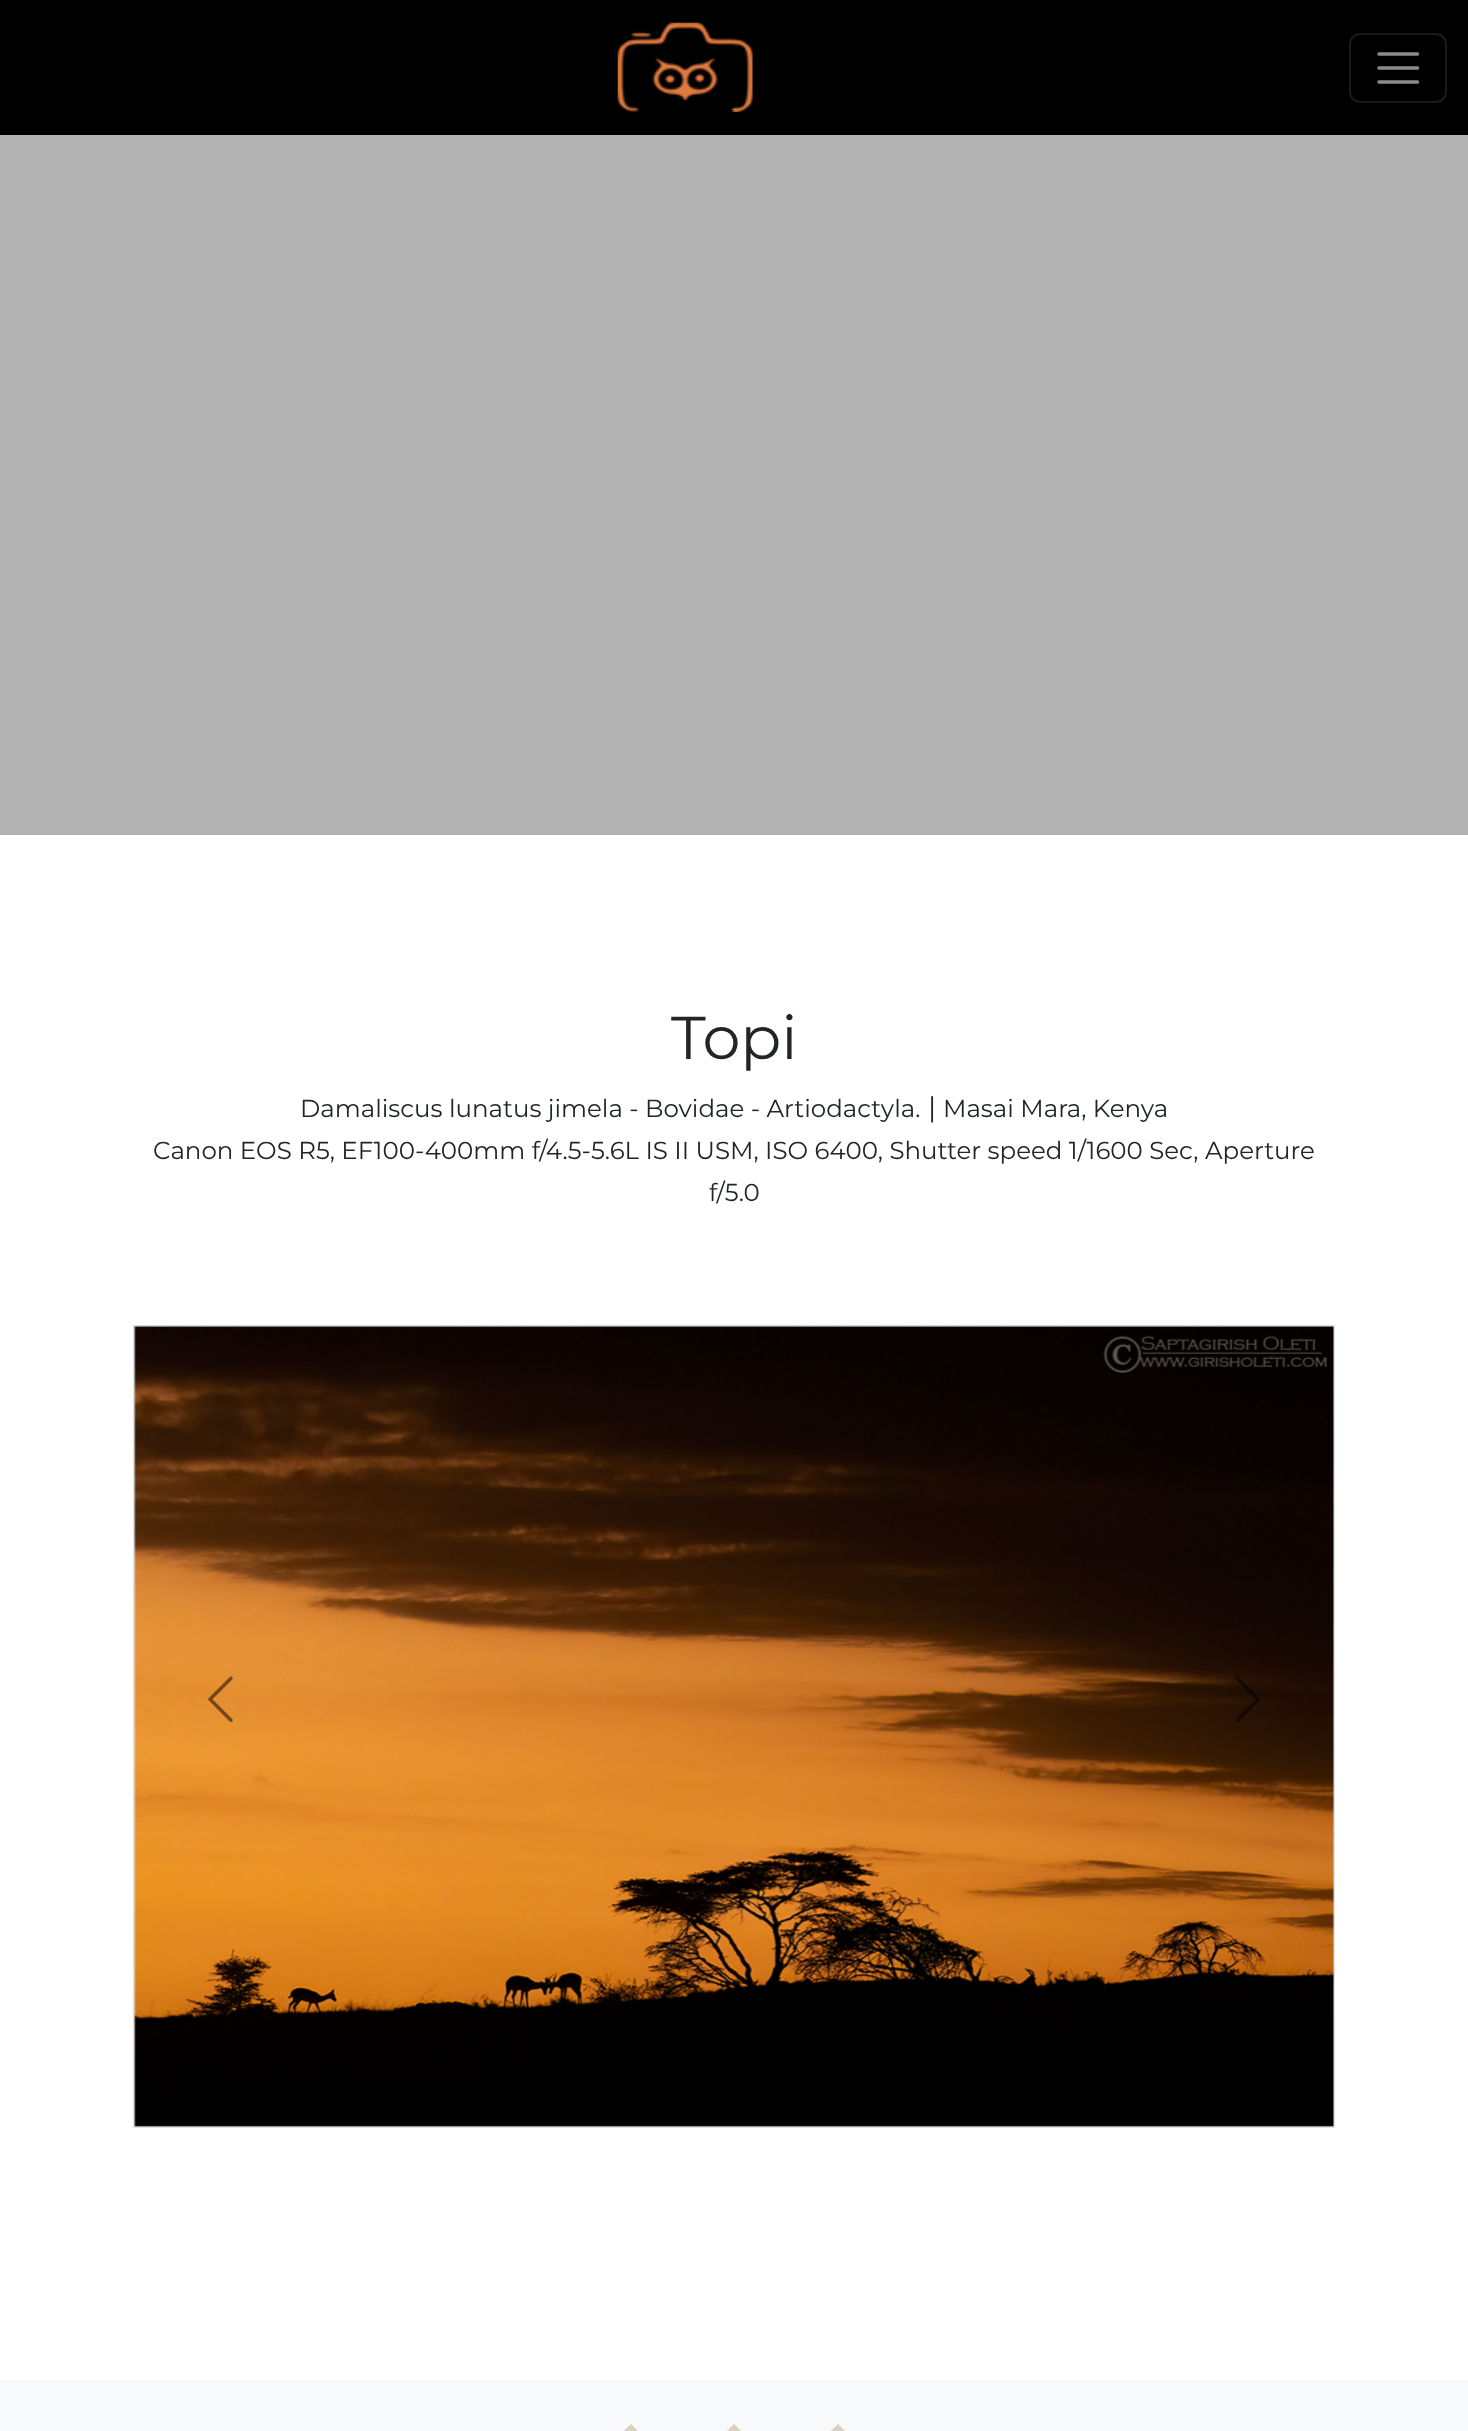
<svg xmlns="http://www.w3.org/2000/svg" xmlns:xlink="http://www.w3.org/1999/xlink" width="1468" height="2431" viewBox="0 0 1468 2431">
<style>
.cls-1{font:100 60.5px Montserrat;fill:#212529}
.cls-2{font:100 24.5px Montserrat;fill:#212529}
.cls-3{font:100 28px Montserrat;fill:#212529}
</style>
<rect width="100%" height="100%" fill="#ffffff"/>
<rect fill="#000000" x="0" y="0" width="1468" height="135"/>
<image xlink:href="image0.png" x="617" y="22" width="136" height="90"/>
<rect fill="none" stroke="#1a1a1a" stroke-width="2" x="1350" y="34" width="96" height="68" rx="10"/>
<path fill="none" stroke="#8c8c8c" stroke-width="3.5" stroke-linecap="round" d="M1379 54H1417.5M1379 68H1417.5M1379 82H1417.5"/>
<rect fill="#b3b3b3" x="0" y="135" width="1468" height="700"/>
<rect fill="none" stroke="#dee2e6" stroke-width="2" x="134" y="1326" width="1200" height="801"/>
<image xlink:href="image1.png" x="134" y="1325" width="1200" height="802"/>
<image xlink:href="image2.png" x="208" y="1676" width="25" height="46"/>
<image xlink:href="image3.png" x="1235" y="1676" width="25" height="46"/>
<rect fill="#f8f9fa" x="0" y="2380" width="1468" height="51"/>
<path fill="#dcd0c0" d="M631 2424L674 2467L631 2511L587 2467Z"/>
<path fill="#dcd0c0" d="M734 2424L777 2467L734 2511L691 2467Z"/>
<path fill="#dcd0c0" d="M838 2424L881 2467L838 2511L794 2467Z"/>
<text class="cls-1" x="671" y="1059">Topi</text>
<text class="cls-2" x="300" y="1117">Damaliscus lunatus jimela - Bovidae - Artiodactyla.</text>
<text class="cls-3" x="928" y="1117">|</text>
<text class="cls-2" x="943" y="1117">Masai Mara, Kenya</text>
<text class="cls-2" x="153" y="1159">Canon EOS R5, EF100-400mm f/4.5-5.6L IS II USM, ISO 6400, Shutter speed 1/1600 Sec, Aperture</text>
<text class="cls-2" x="709" y="1201">f/5.0</text>
</svg>
